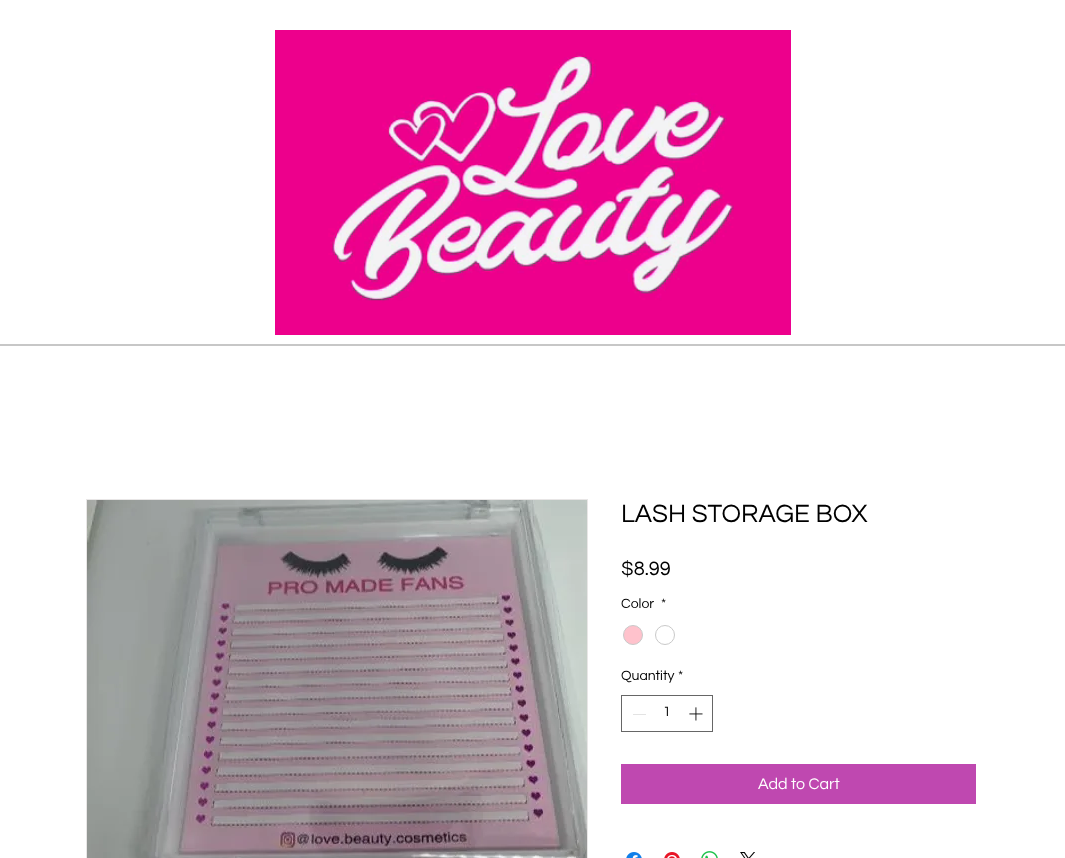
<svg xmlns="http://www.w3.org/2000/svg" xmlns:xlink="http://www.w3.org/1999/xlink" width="1065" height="858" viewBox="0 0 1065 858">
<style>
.cls-1{font:26px Questrial;fill:#000000}
.cls-2{font:20px Questrial;fill:#000000}
.cls-3{font:14px Questrial;fill:#000000}
.cls-4{font:16px Questrial;fill:#ffffff}
</style>
<rect width="100%" height="100%" fill="#ffffff"/>
<image xlink:href="image0.png" x="275" y="30" width="516" height="305"/>
<rect fill="#c7c7c7" x="0" y="344" width="1065" height="2"/>
<rect fill="none" stroke="#e8e6e6" x="86.5" y="499.5" width="501" height="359"/>
<image xlink:href="image1.png" x="87" y="500" width="500" height="358"/>
<circle fill="#ffc2cc" stroke="#c9c9c9" cx="633" cy="635" r="9.5"/>
<circle fill="none" stroke="#c9c9c9" cx="665" cy="635" r="9.5"/>
<rect fill="none" stroke="#666666" x="621.5" y="695.5" width="91" height="36"/>
<rect fill="#e3e3e3" x="633" y="714" width="13" height="1"/>
<image xlink:href="image2.png" x="689" y="707" width="14" height="14"/>
<rect fill="#bf48b0" x="621" y="764" width="355" height="40"/>
<image xlink:href="image3.png" x="626" y="852" width="16" height="6"/>
<image xlink:href="image4.png" x="664" y="852" width="16" height="6"/>
<image xlink:href="image5.png" x="701" y="851" width="17" height="7"/>
<image xlink:href="image6.png" x="740" y="852" width="15" height="6"/>
<text class="cls-1" x="621" y="522">LASH STORAGE BOX</text>
<text class="cls-2" x="621" y="575">$8.99</text>
<text class="cls-3" x="621" y="608">Color</text>
<text class="cls-3" x="661" y="608">*</text>
<text class="cls-3" x="621" y="680">Quantity</text>
<text class="cls-3" x="678" y="680">*</text>
<text class="cls-3" x="663" y="716">1</text>
<text class="cls-4" x="758" y="789">Add to Cart</text>
</svg>
